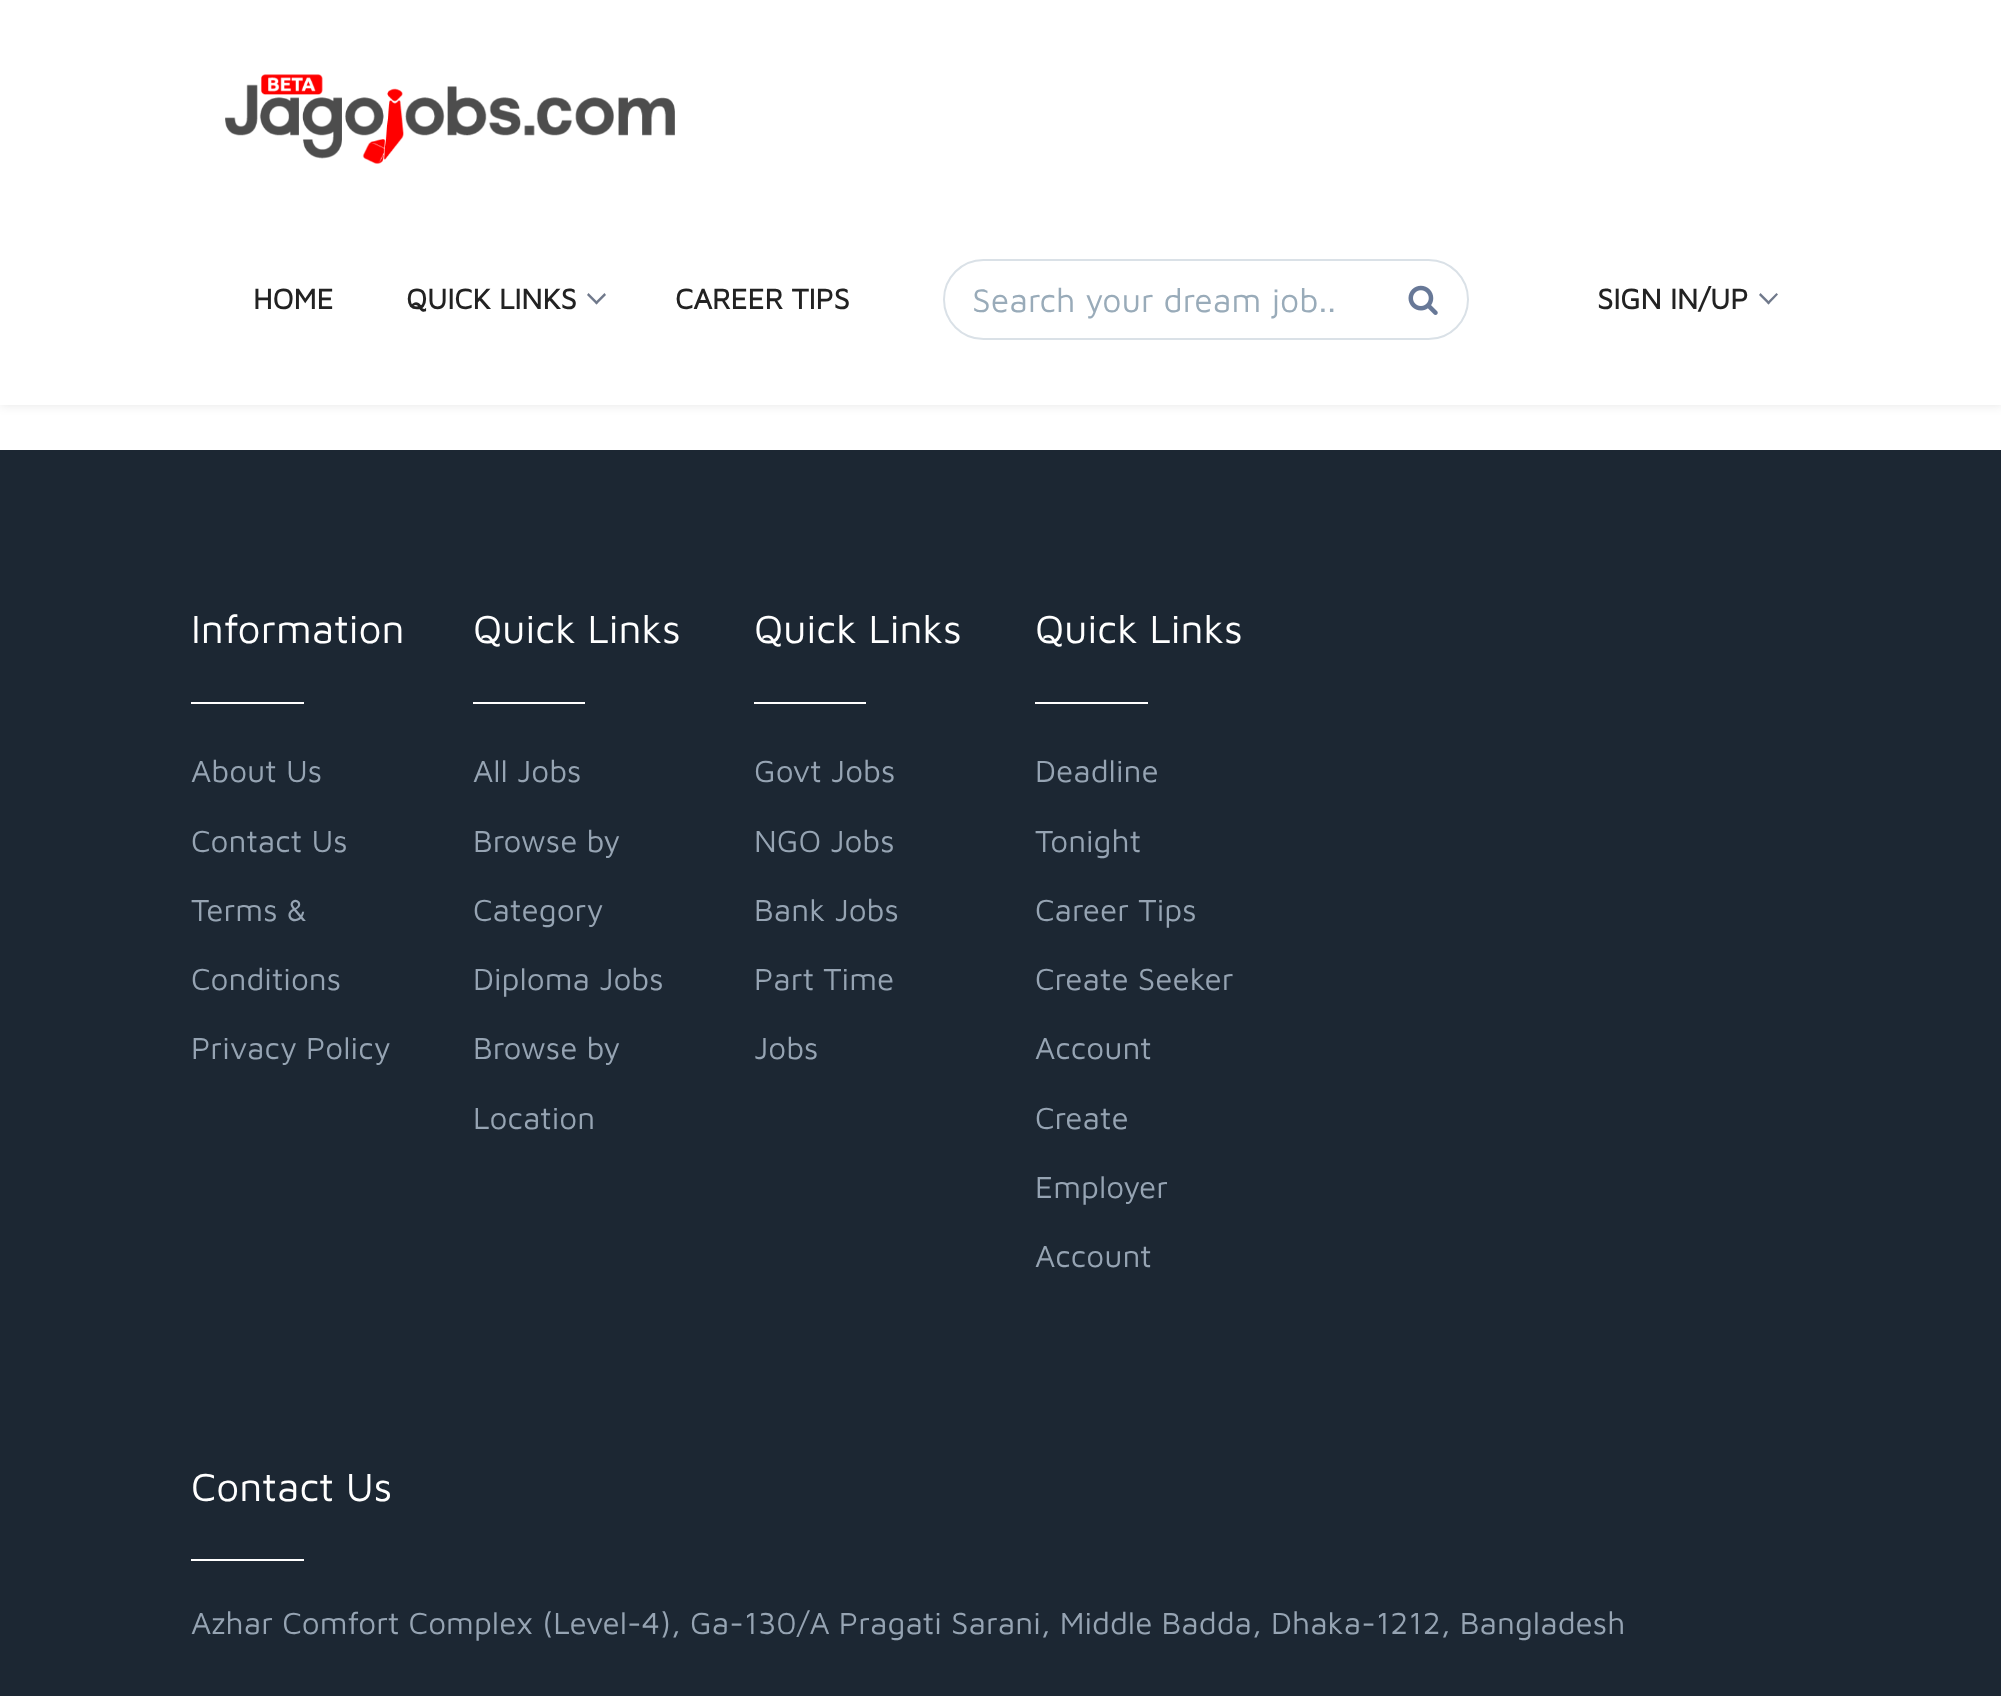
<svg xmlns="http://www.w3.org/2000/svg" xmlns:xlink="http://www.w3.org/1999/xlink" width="2001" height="1696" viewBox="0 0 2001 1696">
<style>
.cls-1{font:bold 29.25px Maven Pro;fill:#222222}
.cls-2{font:33.75px Maven Pro;fill:#99abb9}
.cls-3{font:40.5px Maven Pro;fill:#ffffff}
.cls-4{font:31.5px Maven Pro;fill:#96a4b3}
</style>
<rect width="100%" height="100%" fill="#ffffff"/>
<rect fill="#000000" fill-opacity="0.1" filter="blur(5.5px)" x="0" y="0" width="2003" height="405"/>
<rect fill="#ffffff" x="0" y="0" width="2001" height="405"/>
<image xlink:href="image0.png" x="225" y="74" width="450" height="90"/>
<path fill="#70798b" d="M604.5 293L606 295L596.5 304.5L595 302.5Z"/>
<path fill="#70798b" d="M588.5 293L598 302.5L596.5 304.5L587 295Z"/>
<rect fill="none" stroke="#dae1e7" stroke-width="2" x="944" y="260" width="524" height="79" rx="39.5"/>
<image xlink:href="image1.png" x="1408" y="285" width="30" height="30"/>
<path fill="#70798b" d="M1776.5 293L1778 294.5L1768.5 304.5L1767 302.5Z"/>
<path fill="#70798b" d="M1760.5 293L1770 302.5L1768.5 304.5L1759 295Z"/>
<rect fill="#1c2733" x="0" y="450" width="2001" height="1246"/>
<rect fill="#ffffff" x="191" y="702" width="113" height="2"/>
<rect fill="#ffffff" x="473" y="702" width="112" height="2"/>
<rect fill="#ffffff" x="754" y="702" width="112" height="2"/>
<rect fill="#ffffff" x="1035" y="702" width="113" height="2"/>
<rect fill="#ffffff" x="191" y="1559" width="113" height="2"/>
<text class="cls-1" x="253" y="309">HOME</text>
<text class="cls-1" x="406" y="309">QUICK LINKS</text>
<text class="cls-1" x="675" y="309">CAREER TIPS</text>
<text class="cls-2" x="972" y="312">Search your dream job..</text>
<text class="cls-1" x="1597" y="309">SIGN IN/UP</text>
<text class="cls-3" x="191" y="643">Information</text>
<text class="cls-4" x="191" y="782">About Us</text>
<text class="cls-4" x="191" y="852">Contact Us</text>
<text class="cls-4" x="191" y="921">Terms &amp;</text>
<text class="cls-4" x="191" y="990">Conditions</text>
<text class="cls-4" x="191" y="1059">Privacy Policy</text>
<text class="cls-3" x="473" y="643">Quick Links</text>
<text class="cls-4" x="473" y="782">All Jobs</text>
<text class="cls-4" x="473" y="852">Browse by</text>
<text class="cls-4" x="473" y="921">Category</text>
<text class="cls-4" x="473" y="990">Diploma Jobs</text>
<text class="cls-4" x="473" y="1059">Browse by</text>
<text class="cls-4" x="473" y="1129">Location</text>
<text class="cls-3" x="754" y="643">Quick Links</text>
<text class="cls-4" x="754" y="782">Govt Jobs</text>
<text class="cls-4" x="754" y="852">NGO Jobs</text>
<text class="cls-4" x="754" y="921">Bank Jobs</text>
<text class="cls-4" x="754" y="990">Part Time</text>
<text class="cls-4" x="754" y="1059">Jobs</text>
<text class="cls-3" x="1035" y="643">Quick Links</text>
<text class="cls-4" x="1035" y="782">Deadline</text>
<text class="cls-4" x="1035" y="852">Tonight</text>
<text class="cls-4" x="1035" y="921">Career Tips</text>
<text class="cls-4" x="1035" y="990">Create Seeker</text>
<text class="cls-4" x="1035" y="1059">Account</text>
<text class="cls-4" x="1035" y="1129">Create</text>
<text class="cls-4" x="1035" y="1198">Employer</text>
<text class="cls-4" x="1035" y="1267">Account</text>
<text class="cls-3" x="191" y="1501">Contact Us</text>
<text class="cls-4" x="191" y="1634">Azhar Comfort Complex (Level-4), Ga-130/A Pragati Sarani, Middle Badda, Dhaka-1212, Bangladesh</text>
</svg>
